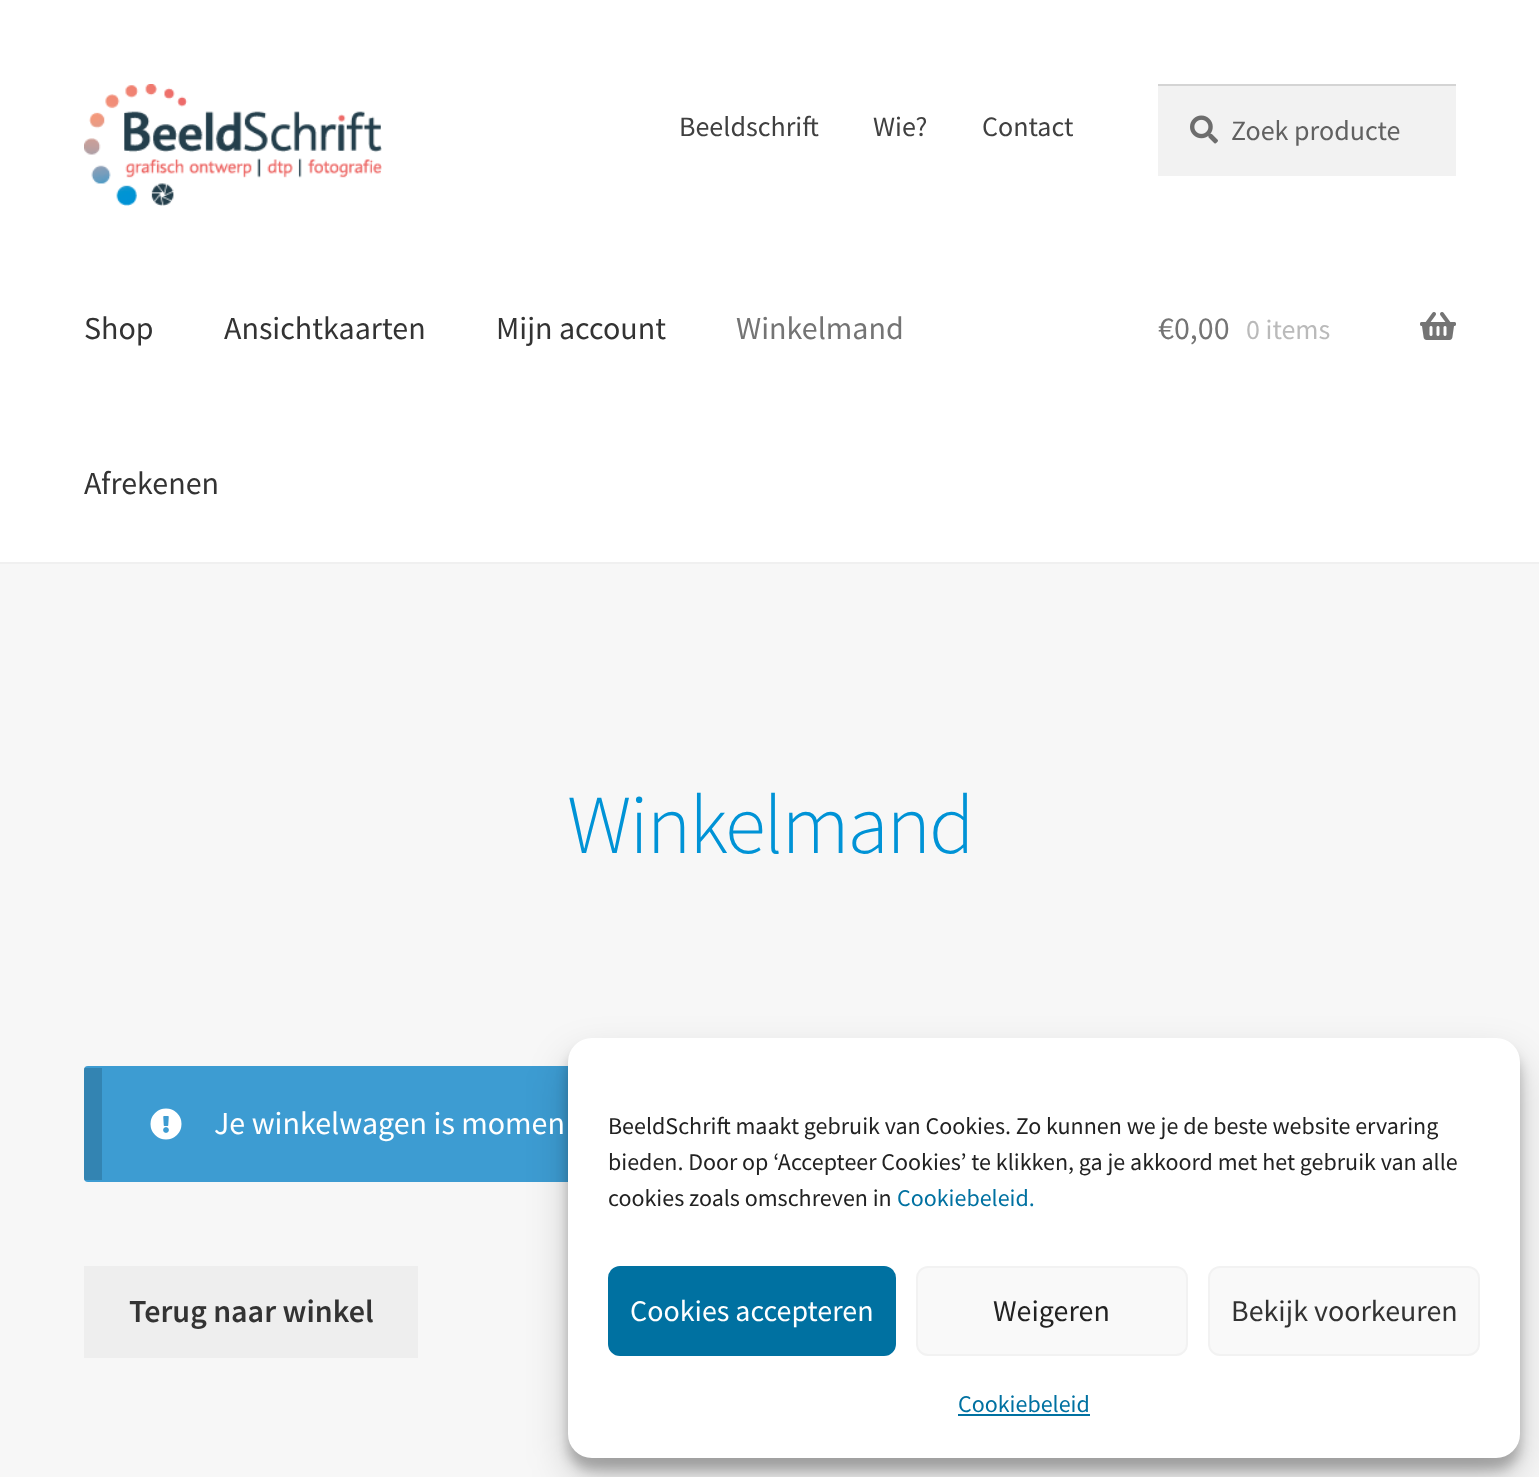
<svg xmlns="http://www.w3.org/2000/svg" xmlns:xlink="http://www.w3.org/1999/xlink" width="1539" height="1477" viewBox="0 0 1539 1477">
<style>
.cls-1{font:28px Source Sans Pro;fill:#404040}
.cls-2{font:28px Source Sans Pro;fill:#616161}
.cls-3{font:32px Source Sans Pro;fill:#333333}
.cls-4{font:32px Source Sans Pro;fill:#747474}
.cls-5{font:28px Source Sans Pro;fill:#bababa}
.cls-6{font:300 83.75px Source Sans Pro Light;letter-spacing:-2px;fill:#0093d6}
.cls-7{font:32px Source Sans Pro;fill:#ffffff}
.cls-8{font:600 32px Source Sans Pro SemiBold;fill:#333333}
.cls-9{font:24px Source Sans Pro;fill:#222222}
.cls-10{font:24px Source Sans Pro;fill:#0071a1}
.cls-11{font:30px Source Sans Pro;fill:#ffffff}
.cls-12{font:30px Source Sans Pro;fill:#222222}
.cls-13{font:30px Source Sans Pro;fill:#333333}
</style>
<rect width="100%" height="100%" fill="#f7f7f7"/>
<rect fill="#ffffff" x="0" y="0" width="1539" height="562"/>
<rect fill="#f0f0f0" x="0" y="562" width="1539" height="2"/>
<image xlink:href="image0.png" x="84" y="84" width="298" height="122"/>
<rect fill="#f2f2f2" x="1158" y="86" width="298" height="90"/>
<image xlink:href="image1.png" x="1190" y="115" width="28" height="29"/>
<rect fill="#d4d4d4" x="1158" y="84" width="298" height="2"/>
<image xlink:href="image2.png" x="1420" y="312" width="36" height="28"/>
<rect fill="#3d9cd2" x="84" y="1066" width="1372" height="116" rx="4"/>
<rect fill="#000000" fill-opacity="0.15" x="84" y="1068" width="18" height="112"/>
<image xlink:href="image3.png" x="150" y="1108" width="32" height="32"/>
<rect fill="#eeeeee" x="84" y="1266" width="334" height="92"/>
<rect fill="#000000" fill-opacity="0.23" filter="blur(6px)" x="568" y="1050" width="952" height="420" rx="24"/>
<rect fill="#000000" fill-opacity="0.19" filter="blur(20px)" x="568" y="1058" width="952" height="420" rx="24"/>
<rect fill="#ffffff" x="568" y="1038" width="952" height="420" rx="24"/>
<rect fill="#0071a1" stroke="#0071a1" stroke-width="2" x="609" y="1267" width="286" height="88" rx="11"/>
<rect fill="#f9f9f9" stroke="#f2f2f2" stroke-width="2" x="917" y="1267" width="270" height="88" rx="11"/>
<rect fill="#f9f9f9" stroke="#f2f2f2" stroke-width="2" x="1209" y="1267" width="270" height="88" rx="11"/>
<rect fill="#0071a1" x="958" y="1414" width="132" height="2"/>
<text class="cls-1" x="679" y="136">Beeldschrift</text>
<text class="cls-1" x="873" y="136">Wie?</text>
<text class="cls-1" x="982" y="136">Contact</text>
<text class="cls-2" x="1231" y="140">Zoek producte</text>
<text class="cls-3" x="84" y="339">Shop</text>
<text class="cls-3" x="224" y="339">Ansichtkaarten</text>
<text class="cls-3" x="496" y="339">Mijn account</text>
<text class="cls-4" x="736" y="339">Winkelmand</text>
<text class="cls-3" x="84" y="494">Afrekenen</text>
<text class="cls-4" x="1158" y="339">€0,00</text>
<text class="cls-5" x="1246" y="339">0 items</text>
<text class="cls-6" x="567" y="853">Winkelmand</text>
<text class="cls-7" x="214" y="1134">Je winkelwagen is momen</text>
<text class="cls-8" x="129" y="1322">Terug naar winkel</text>
<text class="cls-9"><tspan x="608" y="1134">BeeldSchrift maakt gebruik van Cookies. Zo kunnen we je de beste website ervaring</tspan><tspan x="608" y="1170">bieden. Door op ‘Accepteer Cookies’ te klikken, ga je akkoord met het gebruik van alle</tspan><tspan x="608" y="1206">cookies zoals omschreven in</tspan></text>
<text class="cls-10" x="897" y="1206">Cookiebeleid.</text>
<text class="cls-11" x="630" y="1321">Cookies accepteren</text>
<text class="cls-12" x="993" y="1321">Weigeren</text>
<text class="cls-13" x="1231" y="1321">Bekijk voorkeuren</text>
<text class="cls-10" x="958" y="1412">Cookiebeleid</text>
</svg>
